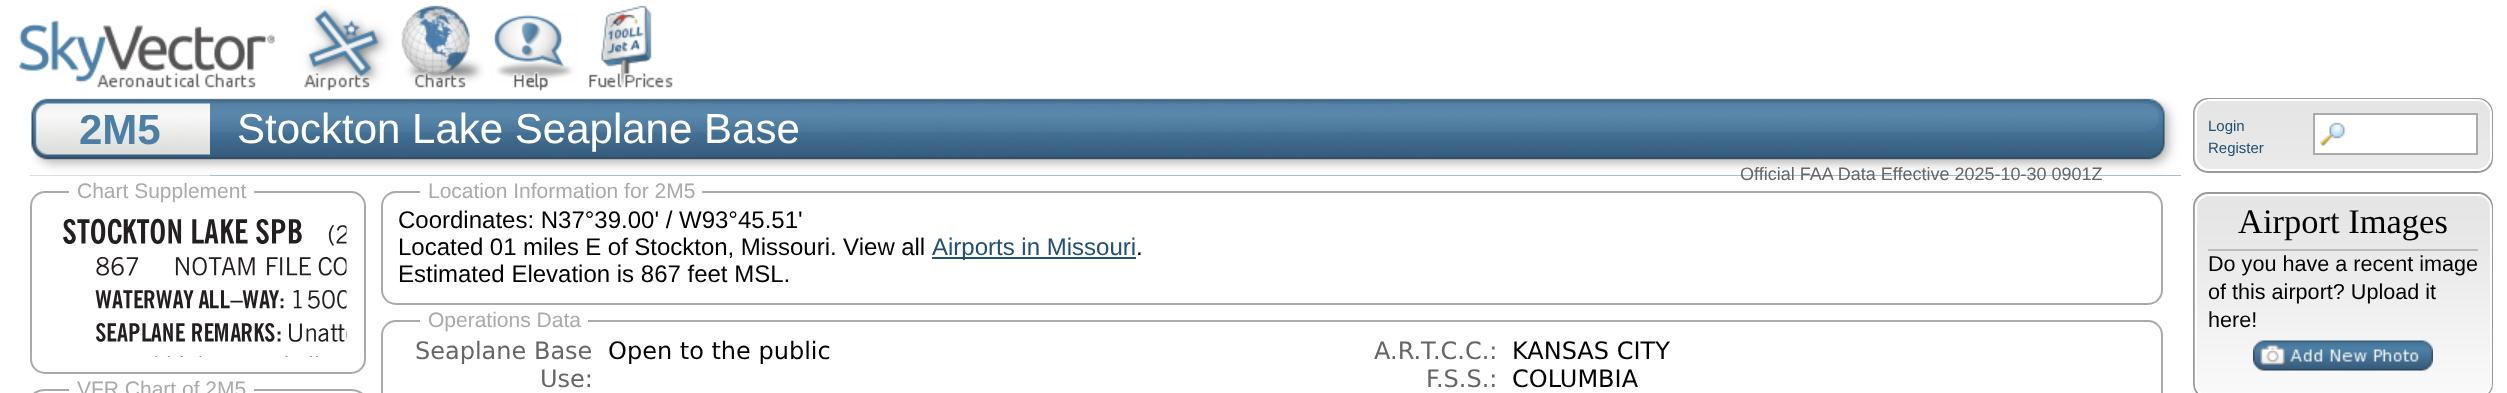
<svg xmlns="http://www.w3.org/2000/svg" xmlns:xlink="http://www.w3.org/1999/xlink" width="2507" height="393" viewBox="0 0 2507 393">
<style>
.cls-1{font:bold 42px Liberation Sans;fill:#4d7fa5}
.cls-2{font:42px Liberation Sans;fill:#ffffff}
.cls-3{font:15px Liberation Sans;fill:#224f72}
.cls-4{font:18px Liberation Sans;fill:#666666}
.cls-5{font:21px Liberation Sans;fill:#aaaaaa}
.cls-6{font:24px Liberation Sans;fill:#000000}
.cls-7{font:24px Liberation Sans;fill:#224f72}
.cls-8{font:24px DejaVu Sans;fill:#666666}
.cls-9{font:24px DejaVu Sans;fill:#000000}
.cls-10{font:34.5px Liberation Serif;fill:#000000}
.cls-11{font:21.6px Liberation Sans;fill:#000000}
</style>
<rect width="100%" height="100%" fill="#ffffff"/>
<image xlink:href="image0.png" x="19" y="5" width="654" height="86"/>
<rect fill="#bbbbbb" x="30" y="175" width="180" height="1"/>
<image xlink:href="image1.png" x="30" y="96" width="180" height="80"/>
<rect fill="#4d7fa5" x="210" y="175" width="1971" height="1"/>
<image xlink:href="image2.png" x="210" y="96" width="1971" height="80"/>
<rect fill="none" stroke="#999999" stroke-width="2" x="2194" y="99" width="298" height="73" rx="14"/>
<image xlink:href="image3.png" x="2194" y="100" width="298" height="71"/>
<rect fill="none" stroke="#ffffff" stroke-width="2" x="2196" y="100" width="295" height="70" rx="14"/>
<rect fill="#ffffff" x="2315" y="115" width="161" height="38"/>
<image xlink:href="image4.png" x="2320" y="122" width="25" height="24"/>
<rect fill="none" stroke="#aaaaaa" stroke-width="2" x="2314" y="114" width="163" height="40"/>
<rect fill="none" stroke="#aaaaaa" stroke-width="2" x="31" y="192" width="334" height="181" rx="14"/>
<rect fill="#ffffff" x="69" y="191" width="185" height="2"/>
<image xlink:href="image5.png" x="63" y="218" width="284" height="139"/>
<rect fill="none" stroke="#aaaaaa" stroke-width="2" x="31" y="390" width="334" height="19" rx="14"/>
<rect fill="#ffffff" x="69" y="389" width="185" height="2"/>
<rect fill="none" stroke="#aaaaaa" stroke-width="2" x="382" y="192" width="1780" height="112" rx="14"/>
<rect fill="#ffffff" x="420" y="191" width="282" height="2"/>
<rect fill="#224f72" x="932" y="257" width="204" height="2"/>
<rect fill="none" stroke="#aaaaaa" stroke-width="2" x="382" y="321" width="1780" height="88" rx="14"/>
<rect fill="#ffffff" x="420" y="320" width="168" height="2"/>
<rect fill="none" stroke="#999999" stroke-width="2" x="2194" y="193" width="298" height="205" rx="14"/>
<image xlink:href="image6.png" x="2194" y="195" width="298" height="198"/>
<rect fill="none" stroke="#ffffff" stroke-width="2" x="2196" y="195" width="295" height="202" rx="14"/>
<rect fill="#bbbbbb" x="2208" y="249" width="270" height="2"/>
<image xlink:href="image7.png" x="2253" y="340" width="180" height="31"/>
<text class="cls-1" x="79" y="144">2M5</text>
<text class="cls-2" x="237" y="143">Stockton Lake Seaplane Base</text>
<text class="cls-3"><tspan x="2208" y="131">Login</tspan><tspan x="2208" y="153">Register</tspan></text>
<text class="cls-4" x="1740" y="180">Official FAA Data Effective 2025-10-30 0901Z</text>
<text class="cls-5" x="77" y="198">Chart Supplement</text>
<text class="cls-5" x="77" y="396">VFR Chart of 2M5</text>
<text class="cls-5" x="428" y="198">Location Information for 2M5</text>
<text class="cls-6"><tspan x="398" y="228">Coordinates: N37°39.00' / W93°45.51'</tspan><tspan x="398" y="255" word-spacing="-0.25">Located 01 miles E of Stockton, Missouri. View all</tspan></text>
<text class="cls-7" x="932" y="255">Airports in Missouri</text>
<text class="cls-6" x="1136" y="255">.</text>
<text class="cls-6" x="398" y="282">Estimated Elevation is 867 feet MSL.</text>
<text class="cls-5" x="428" y="327">Operations Data</text>
<text class="cls-8" x="415" y="359">Seaplane Base</text>
<text class="cls-8" x="540" y="387">Use:</text>
<text class="cls-9" x="608" y="359">Open to the public</text>
<text class="cls-8" x="1374" y="359">A.R.T.C.C.:</text>
<text class="cls-9" x="1512" y="359">KANSAS CITY</text>
<text class="cls-8" x="1426" y="387">F.S.S.:</text>
<text class="cls-9" x="1512" y="387">COLUMBIA</text>
<text class="cls-10" x="2238" y="233">Airport Images</text>
<text class="cls-11"><tspan x="2208" y="271">Do you have a recent image</tspan><tspan x="2208" y="299">of this airport? Upload it</tspan><tspan x="2208" y="327">here!</tspan></text>
</svg>
